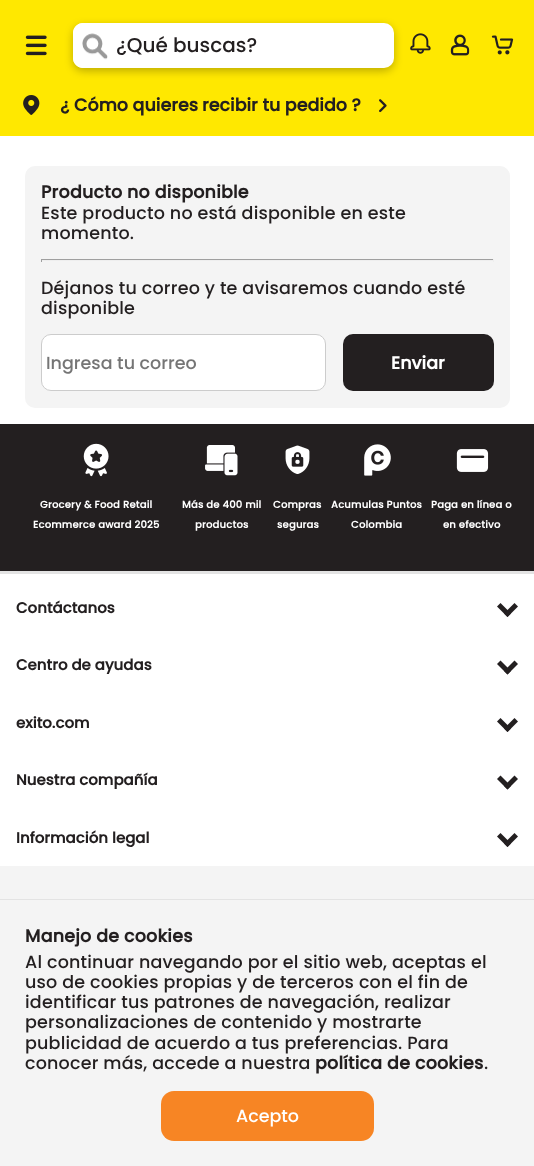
<svg xmlns="http://www.w3.org/2000/svg" xmlns:xlink="http://www.w3.org/1999/xlink" width="534" height="1166" viewBox="0 0 534 1166">
<style>
.cls-1{font:500 20px Poppins;fill:#231f20}
.cls-2{font:bold 17.5px Poppins;fill:#231f20}
.cls-3{font:bold 17.5px Poppins;letter-spacing:0.2px;fill:#231f20}
.cls-4{font:500 17.5px Poppins;letter-spacing:0.2px;fill:#231f20}
.cls-5{font:500 17.5px Poppins;fill:#757575}
.cls-6{font:bold 17.5px Poppins;fill:#ffffff}
.cls-7{font:bold 10px Poppins;letter-spacing:0.2px;fill:#ffffff}
.cls-8{font:bold 15px Poppins;fill:#231f20}
.cls-9{font:500 17.5px Poppins;fill:#ffffff}
</style>
<defs>
<clipPath id="clip1"><path d="M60 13H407V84H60ZM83 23H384C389.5 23 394 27.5 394 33V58C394 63.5 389.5 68 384 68H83C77.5 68 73 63.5 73 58V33C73 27.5 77.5 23 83 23Z" clip-rule="evenodd"/></clipPath>
</defs>
<rect width="100%" height="100%" fill="#ffffff"/>
<rect fill="#ffe800" x="0" y="0" width="534" height="136"/>
<image xlink:href="image0.png" x="25" y="35" width="22" height="21"/>
<rect fill="#ffffff" x="73" y="23" width="321" height="45" rx="10"/>
<g clip-path="url(#clip1)">
<rect fill="#000000" fill-opacity="0.26" filter="blur(4px)" x="73" y="26" width="321" height="45" rx="10"/>
</g>
<path fill="#ffffff" d="M83 23H115V68H83C77.5 68 73 63.5 73 58V33C73 27.5 77.5 23 83 23Z"/>
<image xlink:href="image1.png" x="82" y="33" width="26" height="27"/>
<image xlink:href="image2.png" x="410" y="33" width="21" height="21"/>
<image xlink:href="image3.png" x="450" y="34" width="20" height="22"/>
<image xlink:href="image4.png" x="491" y="35" width="23" height="20"/>
<image xlink:href="image5.png" x="23" y="95" width="17" height="20"/>
<image xlink:href="image6.png" x="379" y="99" width="8" height="14"/>
<rect fill="#f4f4f4" x="25" y="166" width="485" height="242" rx="10"/>
<rect fill="#9f9f9f" x="41" y="259" width="453" height="1"/>
<rect fill="#eeeeee" x="493" y="259" width="1" height="3"/>
<rect fill="#eeeeee" x="41" y="260" width="453" height="1"/>
<rect fill="#9f9f9f" x="41" y="259" width="1" height="3"/>
<rect fill="#ffffff" stroke="#cccccc" x="41.5" y="334.5" width="284" height="56" rx="9.5"/>
<rect fill="#231f20" x="343" y="334" width="151" height="57" rx="10"/>
<rect fill="#231f20" x="0" y="424" width="534" height="147"/>
<image xlink:href="image7.png" x="83" y="443" width="26" height="34"/>
<image xlink:href="image8.png" x="205" y="445" width="33" height="31"/>
<image xlink:href="image9.png" x="285" y="445" width="25" height="29"/>
<image xlink:href="image10.png" x="364" y="444" width="27" height="32"/>
<image xlink:href="image11.png" x="456" y="449" width="33" height="23"/>
<rect fill="#e3e3e3" x="0" y="571" width="534" height="3"/>
<path fill="#231f20" d="M507.5 617L497 606.5L500.5 603L511 613.5Z"/>
<path fill="#231f20" d="M507.5 617L504 613.5L514.5 603L518 606.5Z"/>
<path fill="#231f20" d="M507.5 674.5L497 664L500.5 660.5L511 671Z"/>
<path fill="#231f20" d="M507.5 674.5L504 671L514.5 660.5L518 664Z"/>
<path fill="#231f20" d="M507.5 732L497 721.5L500.5 718L511 728.5Z"/>
<path fill="#231f20" d="M507.5 732L504 728.5L514.5 718L518 721.5Z"/>
<path fill="#231f20" d="M507.5 789.5L497 779L500.5 775.5L511 786Z"/>
<path fill="#231f20" d="M507.5 789.5L504 786L514.5 775.5L518 779Z"/>
<path fill="#231f20" d="M507.5 847L497 836.5L500.5 833L511 843.5Z"/>
<path fill="#231f20" d="M507.5 847L504 843.5L514.5 833L518 836.5Z"/>
<rect fill="#f4f4f4" x="0" y="866" width="534" height="33"/>
<rect fill="#f4f4f4" x="0" y="900" width="534" height="266"/>
<rect fill="#e3e3e3" x="0" y="899" width="534" height="1"/>
<rect fill="#f78524" x="161" y="1091" width="213" height="50" rx="13"/>
<text class="cls-1" x="116" y="52">¿Qué buscas?</text>
<text class="cls-2" x="60" y="111">¿ Cómo quieres</text>
<text class="cls-2" x="202" y="111">recibir tu pedido ?</text>
<text class="cls-3" x="41" y="198">Producto no disponible</text>
<text class="cls-4"><tspan x="41" y="219">Este producto no está disponible en este</tspan><tspan x="41" y="239">momento.</tspan></text>
<text class="cls-4"><tspan x="41" y="294">Déjanos tu correo y te avisaremos cuando esté</tspan><tspan x="41" y="314">disponible</tspan></text>
<text class="cls-5" x="46" y="369">Ingresa tu correo</text>
<text class="cls-6" x="391" y="369">Enviar</text>
<text class="cls-7" x="40" y="508">Grocery &amp; Food Retail</text>
<text class="cls-7" x="33" y="528">Ecommerce award 2025</text>
<text class="cls-7" x="182" y="508">Más de 400 mil</text>
<text class="cls-7" x="195" y="528">productos</text>
<text class="cls-7" x="273" y="508">Compras</text>
<text class="cls-7" x="277" y="528">seguras</text>
<text class="cls-7" x="331" y="508">Acumulas Puntos</text>
<text class="cls-7" x="351" y="528">Colombia</text>
<text class="cls-7" x="431" y="508">Paga en línea o</text>
<text class="cls-7" x="443" y="528">en efectivo</text>
<text class="cls-8" x="16" y="613">Contáctanos</text>
<text class="cls-8" x="16" y="670">Centro de ayudas</text>
<text class="cls-8" x="16" y="728">exito.com</text>
<text class="cls-8" x="16" y="785">Nuestra compañía</text>
<text class="cls-8" x="16" y="843">Información legal</text>
<text class="cls-3" x="25" y="942">Manejo de cookies</text>
<text class="cls-4"><tspan x="25" y="968">Al continuar navegando por el sitio web, aceptas el</tspan><tspan x="25" y="988">uso de cookies propias y de terceros con el fin de</tspan><tspan x="25" y="1008">identificar tus patrones de navegación, realizar</tspan><tspan x="25" y="1028">personalizaciones de contenido y mostrarte</tspan><tspan x="25" y="1049">publicidad de acuerdo a tus preferencias. Para</tspan><tspan x="25" y="1069">conocer más, accede a nuestra</tspan></text>
<text class="cls-3" x="315" y="1069">política de cookies</text>
<text class="cls-4" x="484" y="1069">.</text>
<text class="cls-9" x="236" y="1122">Acepto</text>
</svg>
